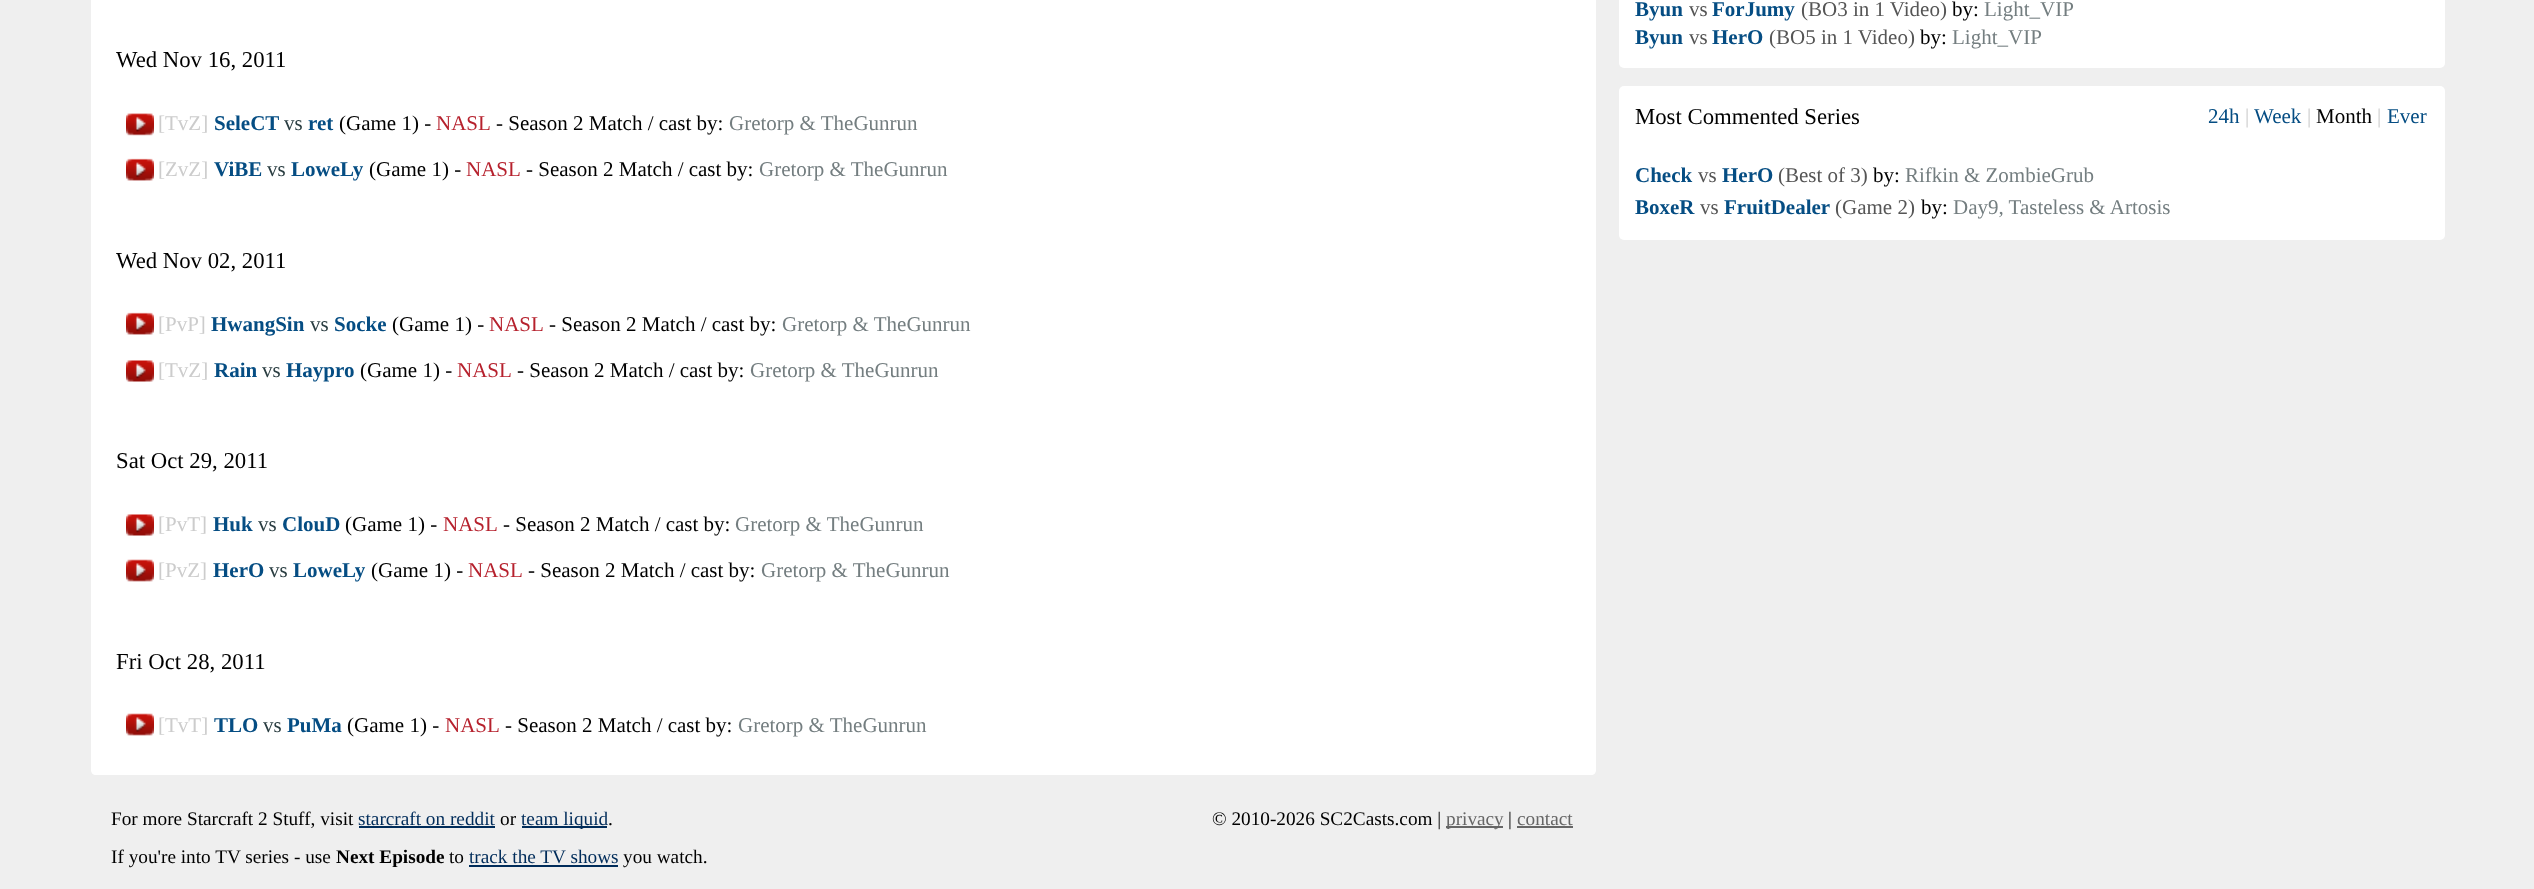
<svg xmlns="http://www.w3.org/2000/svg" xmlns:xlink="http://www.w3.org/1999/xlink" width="2534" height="889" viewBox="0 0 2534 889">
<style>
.cls-1{font:22.75px Liberation Serif;fill:#000000}
.cls-2{font:21px Liberation Serif;fill:#cccccc}
.cls-3{font:bold 21px Liberation Serif;fill:#054d83}
.cls-4{font:21px Liberation Serif;fill:#2b3e42}
.cls-5{font:21px Liberation Serif;fill:#000000}
.cls-6{font:21px Liberation Serif;fill:#b6212d}
.cls-7{font:21px Liberation Serif;fill:#747e80}
.cls-8{font:21px Liberation Serif;fill:#555555}
.cls-9{font:21px Liberation Serif;fill:#054d83}
.cls-10{font:19.25px Liberation Serif;fill:#000000}
.cls-11{font:19.25px Liberation Serif;fill:#002c5a}
.cls-12{font:bold 19.25px Liberation Serif;fill:#000000}
.cls-13{font:19.25px Liberation Serif;fill:#666666}
</style>
<rect width="100%" height="100%" fill="#efefef"/>
<path fill="#ffffff" d="M91-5H1596V770C1596 773 1594 775 1591 775H96C93 775 91 773 91 770Z"/>
<image xlink:href="image0.png" x="126" y="113" width="28" height="23"/>
<image xlink:href="image1.png" x="126" y="158" width="28" height="23"/>
<image xlink:href="image1.png" x="126" y="312" width="28" height="23"/>
<image xlink:href="image2.png" x="126" y="360" width="28" height="22"/>
<image xlink:href="image2.png" x="126" y="514" width="28" height="22"/>
<image xlink:href="image3.png" x="126" y="559" width="28" height="23"/>
<image xlink:href="image3.png" x="126" y="713" width="28" height="23"/>
<rect fill="#ffffff" x="1619" y="-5" width="826" height="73" rx="5"/>
<rect fill="#ffffff" x="1619" y="86" width="826" height="154" rx="5"/>
<rect fill="#002c5a" x="359" y="826" width="136" height="2"/>
<rect fill="#002c5a" x="522" y="826" width="85" height="2"/>
<rect fill="#002c5a" x="469" y="865" width="149" height="2"/>
<rect fill="#666666" x="1446" y="826" width="57" height="2"/>
<rect fill="#666666" x="1517" y="826" width="56" height="2"/>
<text class="cls-1" x="116" y="67">Wed Nov 16, 2011</text>
<text class="cls-2" x="158" y="130">[TvZ]</text>
<text class="cls-3" x="214" y="130">SeleCT</text>
<text class="cls-4" x="284" y="130">vs</text>
<text class="cls-3" x="308" y="130">ret</text>
<text class="cls-5" x="339" y="130">(Game 1) -</text>
<text class="cls-6" x="436" y="130">NASL</text>
<text class="cls-5" x="496" y="130">- Season 2 Match / cast by:</text>
<text class="cls-7" x="729" y="130">Gretorp &amp; TheGunrun</text>
<text class="cls-2" x="158" y="176">[ZvZ]</text>
<text class="cls-3" x="214" y="176">ViBE</text>
<text class="cls-4" x="267" y="176">vs</text>
<text class="cls-3" x="291" y="176">LoweLy</text>
<text class="cls-5" x="369" y="176">(Game 1) -</text>
<text class="cls-6" x="466" y="176">NASL</text>
<text class="cls-5" x="526" y="176">- Season 2 Match / cast by:</text>
<text class="cls-7" x="759" y="176">Gretorp &amp; TheGunrun</text>
<text class="cls-1" x="116" y="268">Wed Nov 02, 2011</text>
<text class="cls-2" x="158" y="331">[PvP]</text>
<text class="cls-3" x="211" y="331">HwangSin</text>
<text class="cls-4" x="310" y="331">vs</text>
<text class="cls-3" x="334" y="331">Socke</text>
<text class="cls-5" x="392" y="331">(Game 1) -</text>
<text class="cls-6" x="489" y="331">NASL</text>
<text class="cls-5" x="549" y="331">- Season 2 Match / cast by:</text>
<text class="cls-7" x="782" y="331">Gretorp &amp; TheGunrun</text>
<text class="cls-2" x="158" y="377">[TvZ]</text>
<text class="cls-3" x="214" y="377">Rain</text>
<text class="cls-4" x="262" y="377">vs</text>
<text class="cls-3" x="286" y="377">Haypro</text>
<text class="cls-5" x="360" y="377">(Game 1) -</text>
<text class="cls-6" x="457" y="377">NASL</text>
<text class="cls-5" x="517" y="377">- Season 2 Match / cast by:</text>
<text class="cls-7" x="750" y="377">Gretorp &amp; TheGunrun</text>
<text class="cls-1" x="116" y="468">Sat Oct 29, 2011</text>
<text class="cls-2" x="158" y="531">[PvT]</text>
<text class="cls-3" x="213" y="531">Huk</text>
<text class="cls-4" x="258" y="531">vs</text>
<text class="cls-3" x="282" y="531">ClouD</text>
<text class="cls-5" x="345" y="531">(Game 1) -</text>
<text class="cls-6" x="443" y="531">NASL</text>
<text class="cls-5" x="503" y="531">- Season 2 Match / cast by:</text>
<text class="cls-7" x="735" y="531">Gretorp &amp; TheGunrun</text>
<text class="cls-2" x="158" y="577">[PvZ]</text>
<text class="cls-3" x="213" y="577">HerO</text>
<text class="cls-4" x="269" y="577">vs</text>
<text class="cls-3" x="293" y="577">LoweLy</text>
<text class="cls-5" x="371" y="577">(Game 1) -</text>
<text class="cls-6" x="468" y="577">NASL</text>
<text class="cls-5" x="528" y="577">- Season 2 Match / cast by:</text>
<text class="cls-7" x="761" y="577">Gretorp &amp; TheGunrun</text>
<text class="cls-1" x="116" y="669">Fri Oct 28, 2011</text>
<text class="cls-2" x="158" y="732">[TvT]</text>
<text class="cls-3" x="214" y="732">TLO</text>
<text class="cls-4" x="263" y="732">vs</text>
<text class="cls-3" x="287" y="732">PuMa</text>
<text class="cls-5" x="347" y="732">(Game 1) -</text>
<text class="cls-6" x="445" y="732">NASL</text>
<text class="cls-5" x="505" y="732">- Season 2 Match / cast by:</text>
<text class="cls-7" x="738" y="732">Gretorp &amp; TheGunrun</text>
<text class="cls-3" x="1635" y="16">Byun</text>
<text class="cls-8" x="1689" y="16">vs</text>
<text class="cls-3" x="1712" y="16">ForJumy</text>
<text class="cls-8" x="1801" y="16">(BO3 in 1 Video)</text>
<text class="cls-5" x="1952" y="16">by:</text>
<text class="cls-7" x="1984" y="16">Light_VIP</text>
<text class="cls-3" x="1635" y="44">Byun</text>
<text class="cls-8" x="1689" y="44">vs</text>
<text class="cls-3" x="1712" y="44">HerO</text>
<text class="cls-8" x="1769" y="44">(BO5 in 1 Video)</text>
<text class="cls-5" x="1920" y="44">by:</text>
<text class="cls-7" x="1952" y="44">Light_VIP</text>
<text class="cls-1" x="1635" y="124">Most Commented Series</text>
<text class="cls-9" x="2208" y="123">24h</text>
<text class="cls-2" x="2245" y="123">|</text>
<text class="cls-9" x="2254" y="123">Week</text>
<text class="cls-2" x="2307" y="123">|</text>
<text class="cls-5" x="2316" y="123">Month</text>
<text class="cls-2" x="2377" y="123">|</text>
<text class="cls-9" x="2387" y="123">Ever</text>
<text class="cls-3" x="1635" y="182">Check</text>
<text class="cls-8" x="1698" y="182">vs</text>
<text class="cls-3" x="1722" y="182">HerO</text>
<text class="cls-8" x="1778" y="182">(Best of 3)</text>
<text class="cls-5" x="1873" y="182">by:</text>
<text class="cls-7" x="1905" y="182">Rifkin &amp; ZombieGrub</text>
<text class="cls-3" x="1635" y="214">BoxeR</text>
<text class="cls-8" x="1700" y="214">vs</text>
<text class="cls-3" x="1724" y="214">FruitDealer</text>
<text class="cls-8" x="1835" y="214">(Game 2)</text>
<text class="cls-5" x="1921" y="214">by:</text>
<text class="cls-7" x="1953" y="214">Day9, Tasteless &amp; Artosis</text>
<text class="cls-10" x="111" y="825">For more Starcraft 2 Stuff, visit</text>
<text class="cls-11" x="358" y="825">starcraft on reddit</text>
<text class="cls-10" x="500" y="825">or</text>
<text class="cls-11" x="521" y="825">team liquid</text>
<text class="cls-10" x="608" y="825">.</text>
<text class="cls-10" x="111" y="863">If you're into TV series - use</text>
<text class="cls-12" x="336" y="863">Next Episode</text>
<text class="cls-10" x="449" y="863">to</text>
<text class="cls-11" x="469" y="863">track the TV shows</text>
<text class="cls-10" x="623" y="863">you watch.</text>
<text class="cls-10" x="1212" y="825">© 2010-2026 SC2Casts.com |</text>
<text class="cls-13" x="1446" y="825">privacy</text>
<text class="cls-10" x="1508" y="825">|</text>
<text class="cls-13" x="1517" y="825">contact</text>
</svg>
